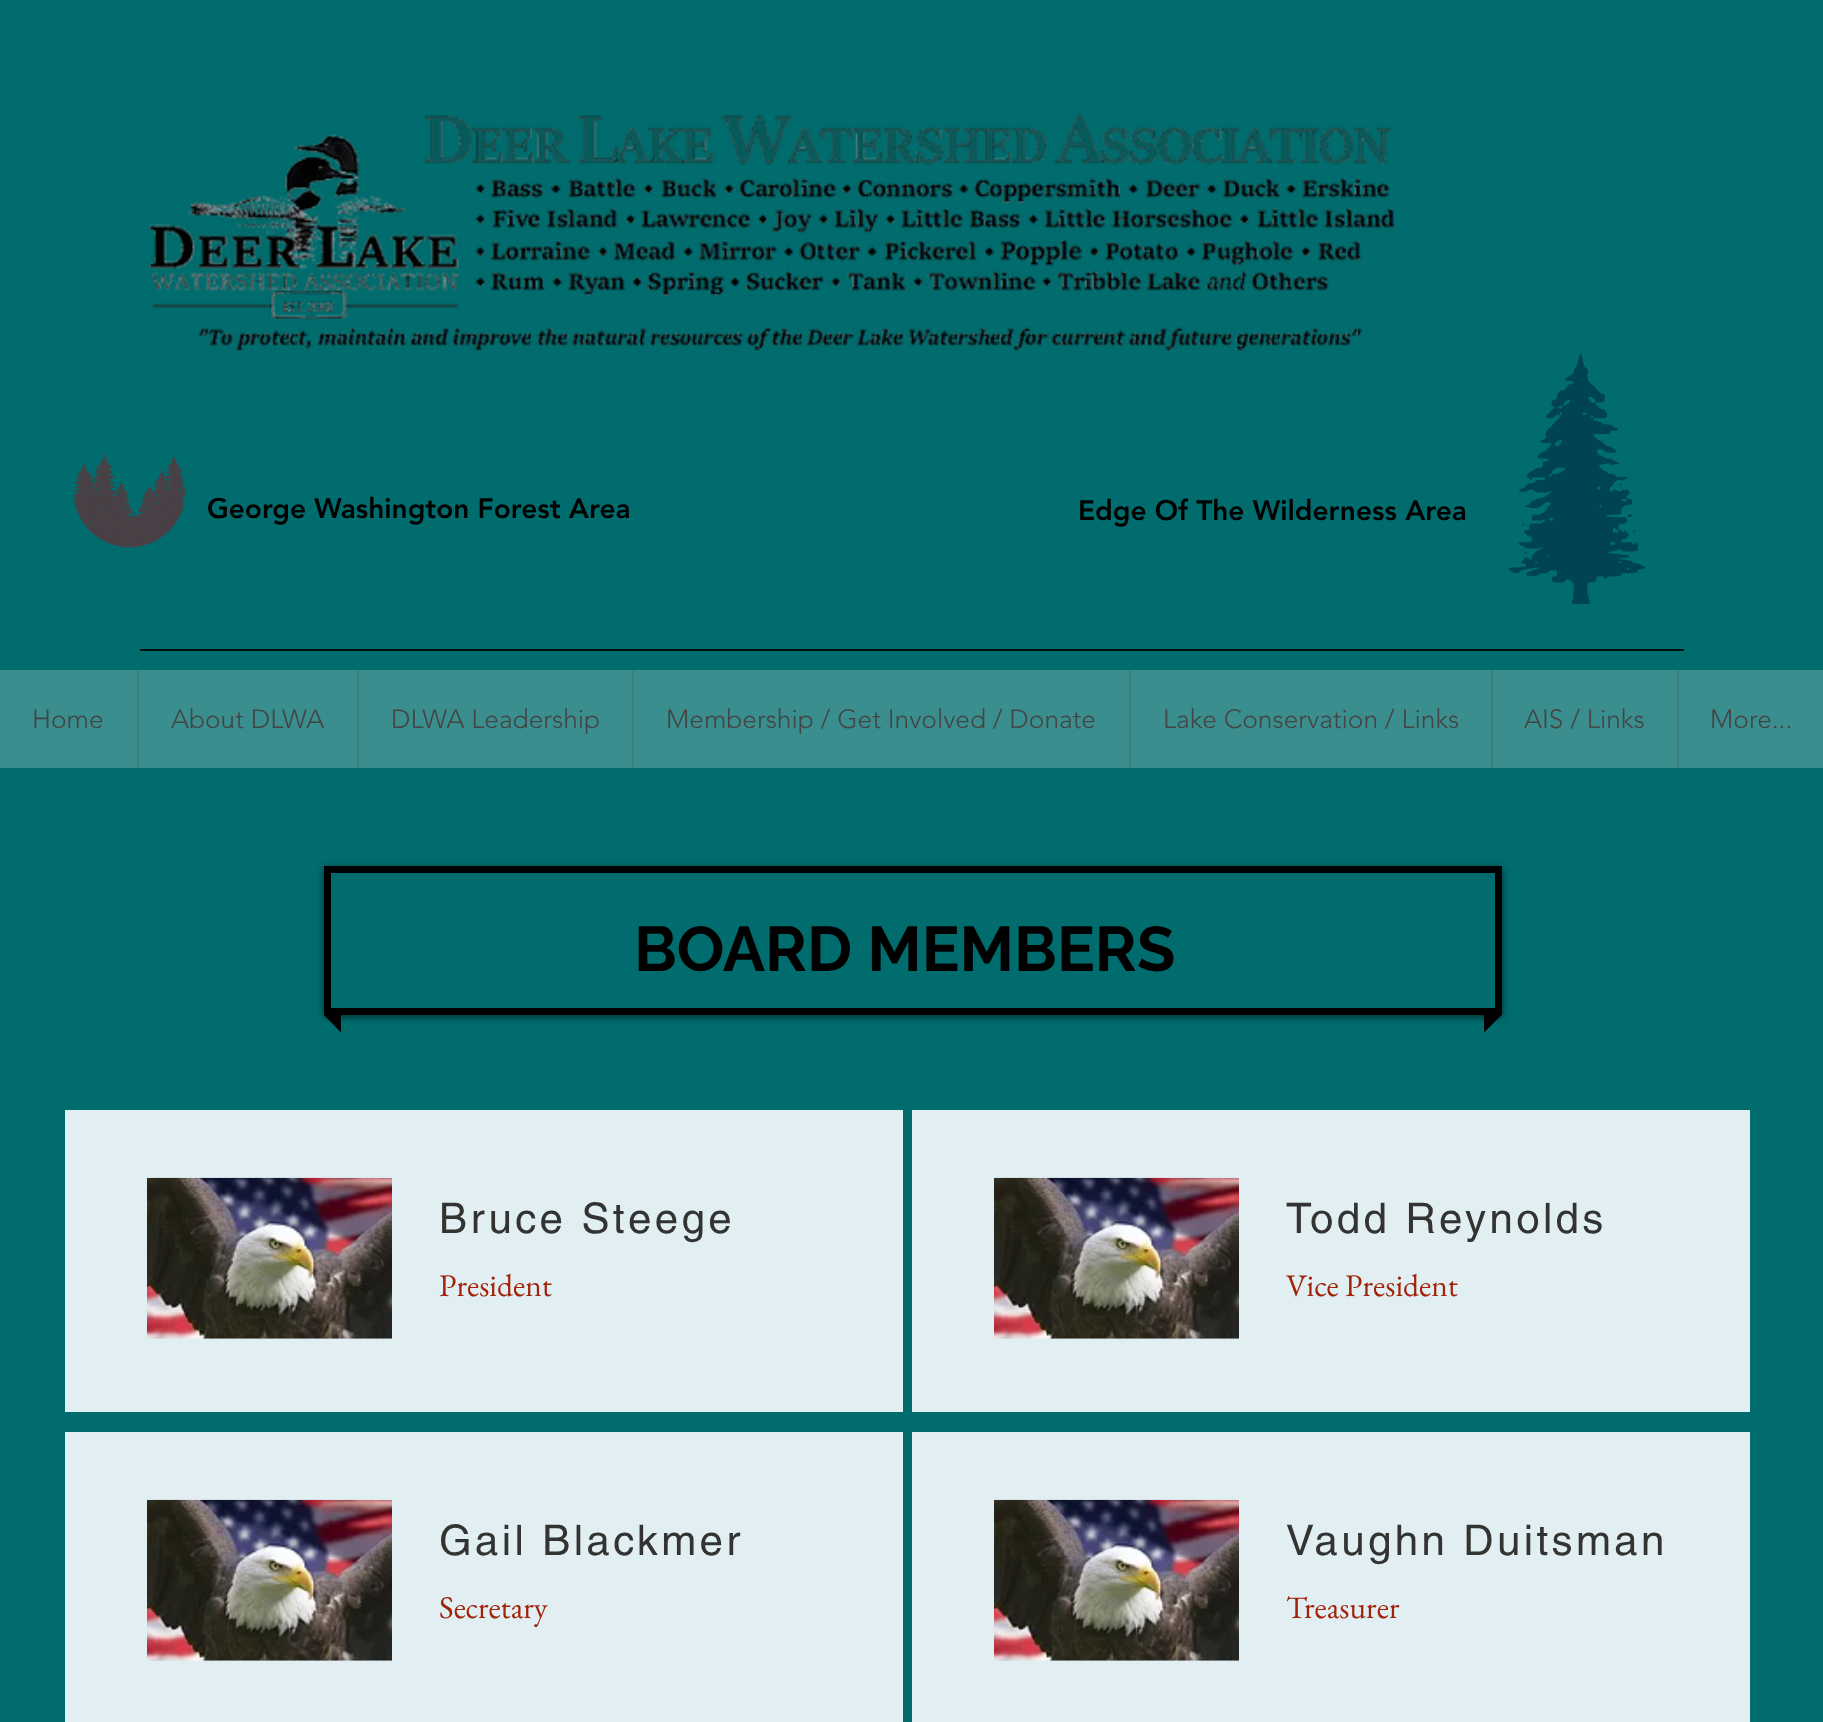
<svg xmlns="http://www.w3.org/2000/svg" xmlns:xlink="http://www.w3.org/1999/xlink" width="1823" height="1722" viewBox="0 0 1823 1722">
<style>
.cls-1{font:900 28px 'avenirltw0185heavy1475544';fill:#000000}
.cls-2{font:300 26.25px 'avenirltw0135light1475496';fill:#444444}
.cls-3{font:bold 63px Raleway;fill:#000000}
.cls-4{font:42px helvetica;letter-spacing:3.4px;fill:#333333}
.cls-5{font:31.5px EB Garamond;fill:#a2230a}
</style>
<defs>
<clipPath id="clip1"><path d="M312 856H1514V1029H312ZM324 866H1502V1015H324Z" clip-rule="evenodd"/></clipPath>
</defs>
<rect width="100%" height="100%" fill="#006c6d"/>
<image xlink:href="image0.png" x="148" y="113" width="1248" height="238"/>
<image xlink:href="image1.png" x="73" y="454" width="113" height="94"/>
<image xlink:href="image2.png" x="1508" y="353" width="137" height="252"/>
<rect fill="#001010" x="140" y="649" width="1544" height="2"/>
<rect fill="#3b8e8e" x="0" y="670" width="1823" height="98"/>
<rect fill="#3c7f7f" x="137" y="670" width="2" height="98"/>
<rect fill="#3c7f7f" x="357" y="670" width="2" height="98"/>
<rect fill="#3c7f7f" x="632" y="670" width="2" height="98"/>
<rect fill="#3c7f7f" x="1129" y="670" width="2" height="98"/>
<rect fill="#3c7f7f" x="1491" y="670" width="2" height="98"/>
<rect fill="#3c7f7f" x="1677" y="670" width="2" height="98"/>
<path fill="#000000" d="M324 1015H341V1032.5Z"/>
<path fill="#000000" d="M1484 1015H1501.5L1484 1032.5Z"/>
<g clip-path="url(#clip1)">
<rect fill="#000000" fill-opacity="0.6" filter="blur(3.5px)" x="324" y="868" width="1178" height="149"/>
</g>
<rect fill="none" stroke="#000000" stroke-width="7" x="327.5" y="869.5" width="1171" height="142"/>
<rect fill="#e1eff2" x="65" y="1110" width="838" height="302"/>
<image xlink:href="image3.png" x="147" y="1177" width="245" height="162"/>
<rect fill="#e1eff2" x="912" y="1110" width="838" height="302"/>
<image xlink:href="image4.png" x="994" y="1177" width="245" height="162"/>
<rect fill="#e1eff2" x="65" y="1432" width="838" height="290"/>
<image xlink:href="image3.png" x="147" y="1499" width="245" height="162"/>
<rect fill="#e1eff2" x="912" y="1432" width="838" height="290"/>
<image xlink:href="image4.png" x="994" y="1499" width="245" height="162"/>
<text class="cls-1" x="207" y="518">George Washington Forest Area</text>
<text class="cls-1" x="1078" y="520">Edge Of The Wilderness Area</text>
<text class="cls-2" x="32" y="728">Home</text>
<text class="cls-2" x="171" y="728">About DLWA</text>
<text class="cls-2" x="391" y="728">DLWA Leadership</text>
<text class="cls-2" x="666" y="728">Membership / Get Involved / Donate</text>
<text class="cls-2" x="1163" y="728">Lake Conservation / Links</text>
<text class="cls-2" x="1524" y="728">AIS / Links</text>
<text class="cls-2" x="1710" y="728">More...</text>
<text class="cls-3" x="634" y="971">BOARD MEMBERS</text>
<text class="cls-4" x="439" y="1233">Bruce Steege</text>
<text class="cls-5" x="439" y="1296">President</text>
<text class="cls-4" x="1286" y="1233">Todd Reynolds</text>
<text class="cls-5" x="1286" y="1296">Vice President</text>
<text class="cls-4" x="439" y="1555">Gail Blackmer</text>
<text class="cls-5" x="439" y="1618">Secretary</text>
<text class="cls-4" x="1286" y="1555">Vaughn Duitsman</text>
<text class="cls-5" x="1286" y="1618">Treasurer</text>
</svg>
